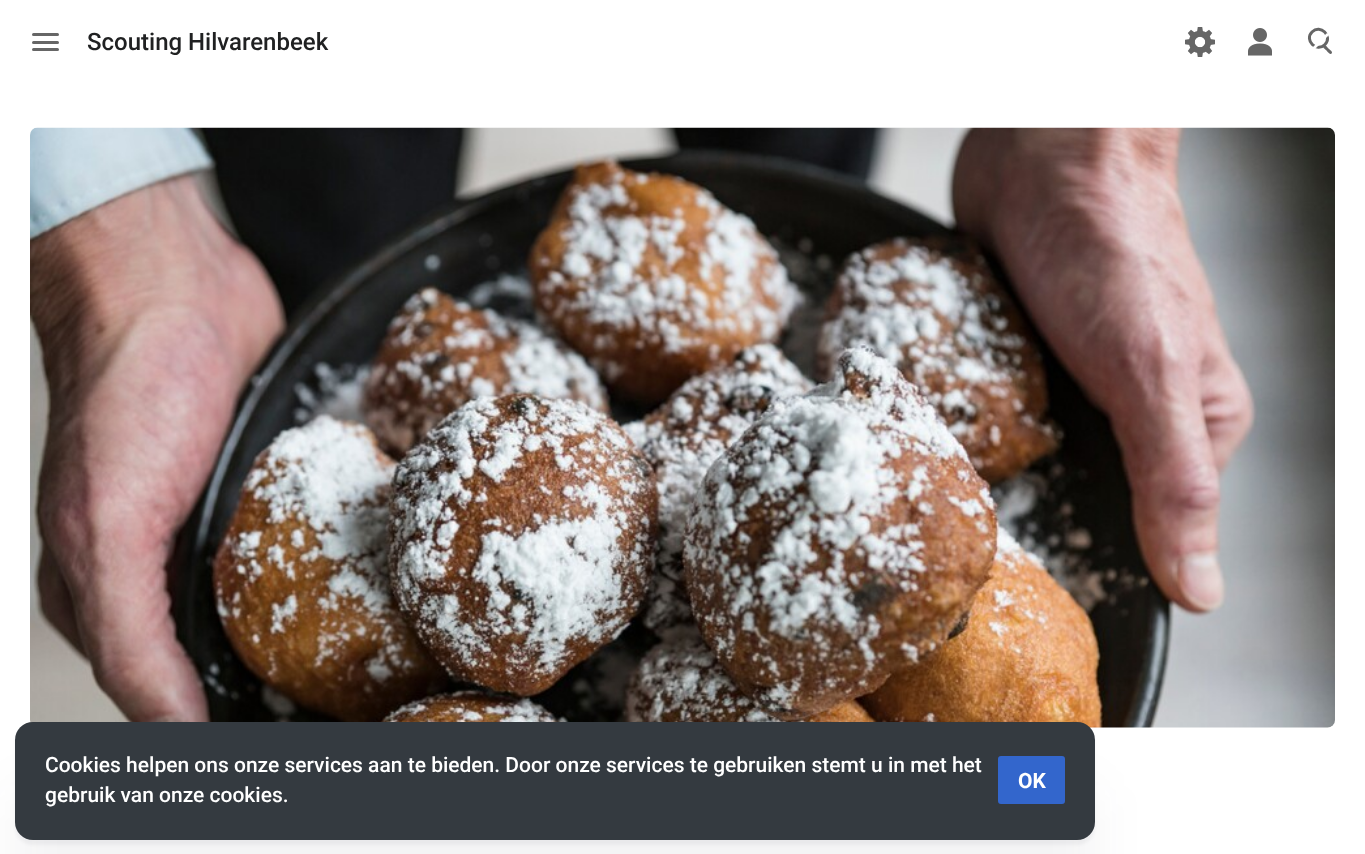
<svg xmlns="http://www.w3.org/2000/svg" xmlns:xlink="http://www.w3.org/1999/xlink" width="1365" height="854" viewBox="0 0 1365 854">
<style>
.cls-1{font:500 24px Roboto;fill:#202122}
.cls-2{font:500 21px Roboto;fill:#ffffff}
.cls-3{font:bold 21px Roboto;fill:#ffffff}
</style>
<rect width="100%" height="100%" fill="#ffffff"/>
<rect fill="#666666" x="32" y="33" width="27" height="3" rx="1.5"/>
<rect fill="#666666" x="32" y="41" width="27" height="3" rx="1.5"/>
<rect fill="#666666" x="32" y="48" width="27" height="3" rx="1.5"/>
<image xlink:href="image0.png" x="1185" y="27" width="30" height="30"/>
<image xlink:href="image1.png" x="1248" y="28" width="24" height="28"/>
<path fill="#666666" d="M1323.5 45.5C1325 43.5 1327.5 47.5 1328.5 48.5C1329.5 49.5 1333.5 52 1331.5 53.5C1330 55.5 1327.5 51.5 1326.5 50.5C1325.5 49.5 1321.5 47 1323.5 45.5Z"/>
<path fill="none" stroke="#666666" stroke-width="3" d="M1312 32C1320.5 23.5 1333 36.5 1325 44.5C1316.5 53 1304 40 1312 32Z"/>
<path fill="#ffffff" d="M1311.5 50.5C1311 50 1311 49 1311.5 48.5L1326.5 33.5C1327 33 1328 33 1328.5 33.5C1329 34 1329 35 1328.5 35.5L1313.5 50.5C1313 51 1312 51 1311.5 50.5Z"/>
<image xlink:href="image2.png" x="30" y="127" width="1305" height="601"/>
<rect fill="#2e3138" fill-opacity="0.05" filter="blur(25px)" x="15" y="785" width="1080" height="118" rx="18"/>
<rect fill="#2e3138" fill-opacity="0.05" filter="blur(1.5px)" x="15" y="726" width="1080" height="119" rx="18"/>
<rect fill="#343a40" x="15" y="722" width="1080" height="118" rx="18"/>
<rect fill="#3366cc" stroke="#3366cc" stroke-width="2" x="999" y="757" width="65" height="46" rx="2"/>
<text class="cls-1" x="87" y="50">Scouting Hilvarenbeek</text>
<text class="cls-2"><tspan x="45" y="772">Cookies helpen ons onze services aan te bieden. Door onze services te gebruiken stemt u in met het</tspan><tspan x="45" y="802">gebruik van onze cookies.</tspan></text>
<text class="cls-3" x="1018" y="788">OK</text>
</svg>
